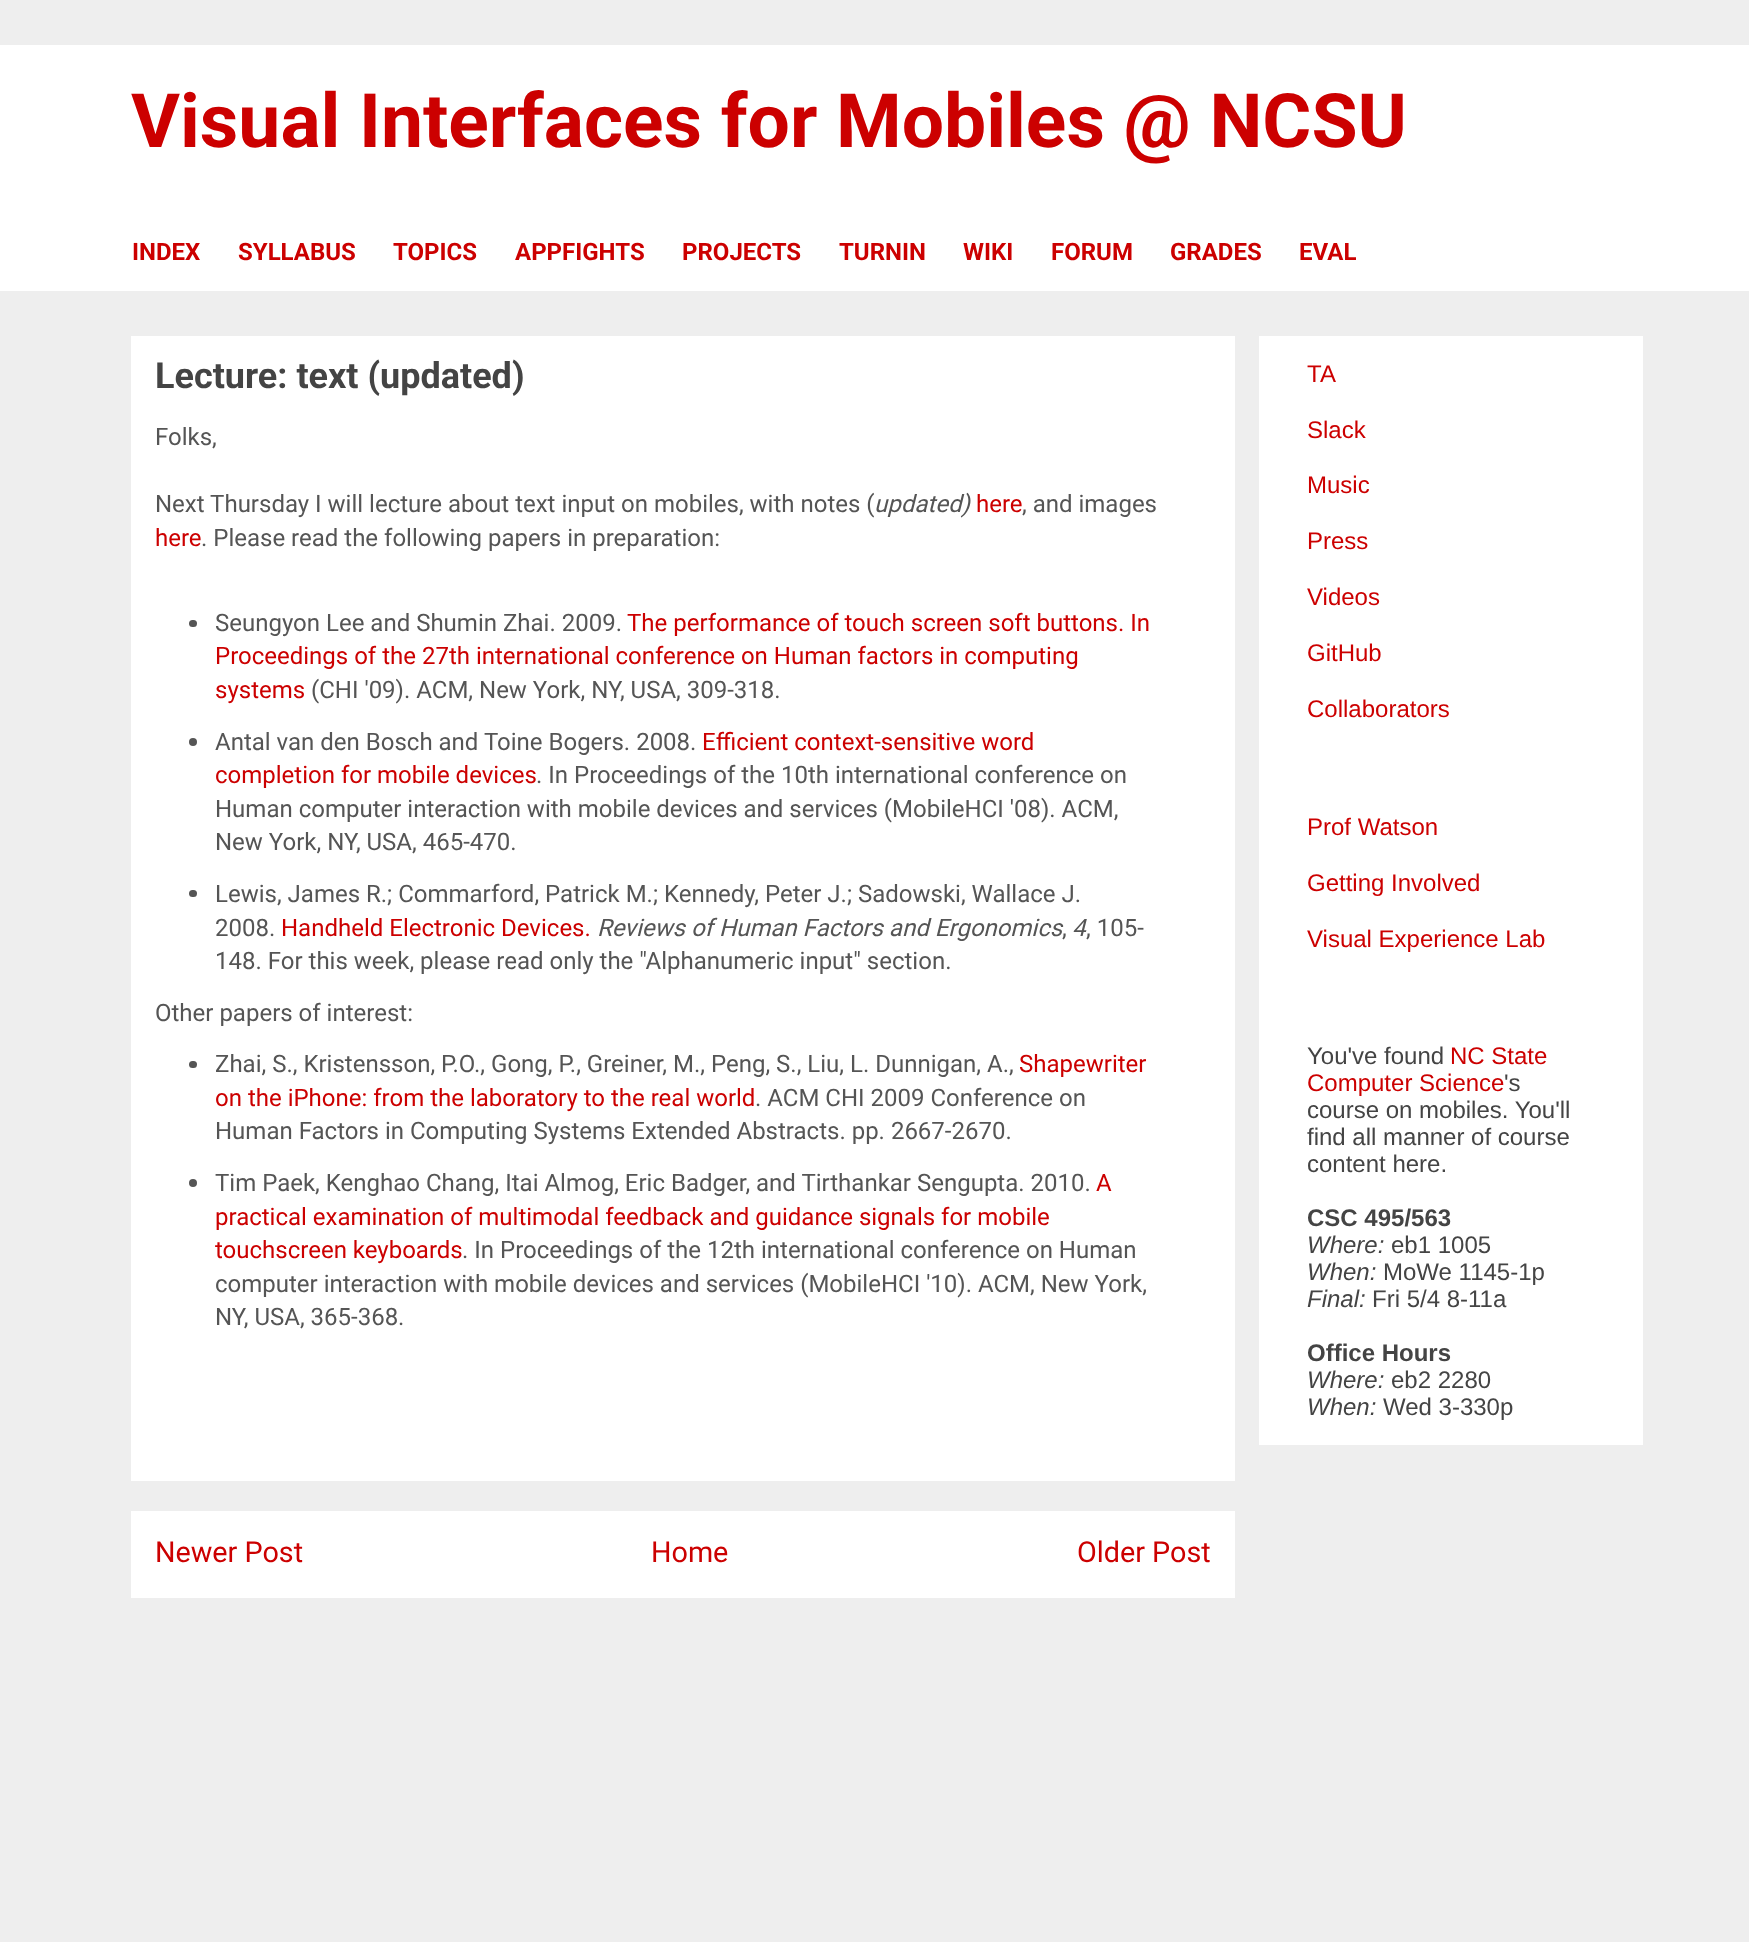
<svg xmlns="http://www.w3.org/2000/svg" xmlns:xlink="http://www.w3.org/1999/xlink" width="1749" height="1942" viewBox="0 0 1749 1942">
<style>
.cls-1{font:bold 75px Roboto;fill:#cc0000}
.cls-2{font:bold 24px Roboto;fill:#cc0000}
.cls-3{font:bold 36px Roboto;fill:#444444}
.cls-4{font:24px Roboto;fill:#555555}
.cls-5{font:italic 24px Roboto;fill:#555555}
.cls-6{font:24px Roboto;fill:#cc0000}
.cls-7{font:28.75px Roboto;fill:#cc0000}
.cls-8{font:24px Liberation Sans;fill:#cc0000}
.cls-9{font:24px Liberation Sans;fill:#444444}
.cls-10{font:bold 24px Liberation Sans;fill:#444444}
.cls-11{font:italic 24px Liberation Sans;fill:#444444}
</style>
<rect width="100%" height="100%" fill="#eeeeee"/>
<rect fill="#ffffff" x="0" y="45" width="1749" height="246"/>
<rect fill="#ffffff" x="131" y="336" width="1104" height="1145"/>
<rect fill="#555555" x="189" y="620" width="8" height="7" rx="3.5"/>
<circle fill="#555555" cx="193" cy="742" r="4"/>
<rect fill="#555555" x="189" y="890" width="8" height="7" rx="3.5"/>
<rect fill="#555555" x="189" y="1061" width="8" height="7" rx="3.5"/>
<circle fill="#555555" cx="193" cy="1183" r="4"/>
<rect fill="#ffffff" x="131" y="1511" width="1104" height="87"/>
<rect fill="#ffffff" x="1259" y="336" width="384" height="1109"/>
<text class="cls-1" x="131" y="147">Visual Interfaces for Mobiles @ NCSU</text>
<text class="cls-2" x="132" y="260">INDEX</text>
<text class="cls-2" x="238" y="260">SYLLABUS</text>
<text class="cls-2" x="393" y="260">TOPICS</text>
<text class="cls-2" x="515" y="260">APPFIGHTS</text>
<text class="cls-2" x="682" y="260">PROJECTS</text>
<text class="cls-2" x="839" y="260">TURNIN</text>
<text class="cls-2" x="963" y="260">WIKI</text>
<text class="cls-2" x="1051" y="260">FORUM</text>
<text class="cls-2" x="1170" y="260">GRADES</text>
<text class="cls-2" x="1299" y="260">EVAL</text>
<text class="cls-3" x="155" y="388">Lecture: text (updated)</text>
<text class="cls-4" x="155" y="445">Folks,</text>
<text class="cls-4" x="155" y="512">Next Thursday I will lecture about text input on mobiles, with notes (</text>
<text class="cls-5" x="874" y="512">updated)</text>
<text class="cls-6" x="976" y="512">here</text>
<text class="cls-4" x="1022" y="512">, and images</text>
<text class="cls-6" x="155" y="546">here</text>
<text class="cls-4" x="201" y="546">. Please read the following papers in preparation:</text>
<text class="cls-4" x="215" y="631">Seungyon Lee and Shumin Zhai. 2009.</text>
<text class="cls-6" x="627" y="631">The performance of touch screen soft buttons. In</text>
<text class="cls-6"><tspan x="215" y="664">Proceedings of the 27th international conference on Human factors in computing</tspan><tspan x="215" y="698">systems</tspan></text>
<text class="cls-4" x="311" y="698">(CHI '09). ACM, New York, NY, USA, 309-318.</text>
<text class="cls-4" x="215" y="750">Antal van den Bosch and Toine Bogers. 2008.</text>
<text class="cls-6" x="702" y="750">Efficient context-sensitive word</text>
<text class="cls-6" x="215" y="783">completion for mobile devices</text>
<text class="cls-4" x="536" y="783">. In Proceedings of the 10th international conference on</text>
<text class="cls-4"><tspan x="215" y="817">Human computer interaction with mobile devices and services (MobileHCI '08). ACM,</tspan><tspan x="215" y="850">New York, NY, USA, 465-470.</tspan></text>
<text class="cls-4"><tspan x="215" y="902">Lewis, James R.; Commarford, Patrick M.; Kennedy, Peter J.; Sadowski, Wallace J.</tspan><tspan x="215" y="936">2008.</tspan></text>
<text class="cls-6" x="281" y="936">Handheld Electronic Devices.</text>
<text class="cls-5" x="597" y="936">Reviews of Human Factors and Ergonomics</text>
<text class="cls-4" x="1062" y="936">,</text>
<text class="cls-5" x="1072" y="936">4</text>
<text class="cls-4" x="1086" y="936">, 105-</text>
<text class="cls-4" x="215" y="969">148. For this week, please read only the "Alphanumeric input" section.</text>
<text class="cls-4" x="155" y="1021">Other papers of interest:</text>
<text class="cls-4" x="215" y="1072">Zhai, S., Kristensson, P.O., Gong, P., Greiner, M., Peng, S., Liu, L. Dunnigan, A.,</text>
<text class="cls-6" x="1019" y="1072">Shapewriter</text>
<text class="cls-6" x="215" y="1106">on the iPhone: from the laboratory to the real world</text>
<text class="cls-4" x="755" y="1106">. ACM CHI 2009 Conference on</text>
<text class="cls-4" x="215" y="1139">Human Factors in Computing Systems Extended Abstracts. pp. 2667-2670.</text>
<text class="cls-4" x="215" y="1191">Tim Paek, Kenghao Chang, Itai Almog, Eric Badger, and Tirthankar Sengupta. 2010.</text>
<text class="cls-6" x="1096" y="1191">A</text>
<text class="cls-6"><tspan x="215" y="1225">practical examination of multimodal feedback and guidance signals for mobile</tspan><tspan x="215" y="1258">touchscreen keyboards</tspan></text>
<text class="cls-4" x="462" y="1258">. In Proceedings of the 12th international conference on Human</text>
<text class="cls-4"><tspan x="215" y="1292">computer interaction with mobile devices and services (MobileHCI '10). ACM, New York,</tspan><tspan x="215" y="1325">NY, USA, 365-368.</tspan></text>
<text class="cls-7" x="155" y="1562">Newer Post</text>
<text class="cls-7" x="651" y="1562">Home</text>
<text class="cls-7" x="1077" y="1562">Older Post</text>
<text class="cls-8" x="1307" y="382">TA</text>
<text class="cls-8" x="1307" y="438">Slack</text>
<text class="cls-8" x="1307" y="493">Music</text>
<text class="cls-8" x="1307" y="549">Press</text>
<text class="cls-8" x="1307" y="605">Videos</text>
<text class="cls-8" x="1307" y="661">GitHub</text>
<text class="cls-8" x="1307" y="717">Collaborators</text>
<text class="cls-8" x="1307" y="835">Prof Watson</text>
<text class="cls-8" x="1307" y="891">Getting Involved</text>
<text class="cls-8" x="1307" y="947">Visual Experience Lab</text>
<text class="cls-9" x="1307" y="1064">You've found</text>
<text class="cls-8" x="1450" y="1064">NC State</text>
<text class="cls-8" x="1307" y="1091">Computer Science</text>
<text class="cls-9" x="1504" y="1091">'s</text>
<text class="cls-9"><tspan x="1307" y="1118">course on mobiles. You'll</tspan><tspan x="1307" y="1145">find all manner of course</tspan><tspan x="1307" y="1172">content here.</tspan></text>
<text class="cls-10" x="1307" y="1226">CSC 495/563</text>
<text class="cls-11" x="1307" y="1253">Where:</text>
<text class="cls-9" x="1391" y="1253">eb1 1005</text>
<text class="cls-11" x="1307" y="1280">When:</text>
<text class="cls-9" x="1383" y="1280">MoWe 1145-1p</text>
<text class="cls-11" x="1307" y="1307">Final:</text>
<text class="cls-9" x="1372" y="1307">Fri 5/4 8-11a</text>
<text class="cls-10" x="1307" y="1361">Office Hours</text>
<text class="cls-11" x="1307" y="1388">Where:</text>
<text class="cls-9" x="1391" y="1388">eb2 2280</text>
<text class="cls-11" x="1307" y="1415">When:</text>
<text class="cls-9" x="1383" y="1415">Wed 3-330p</text>
</svg>
